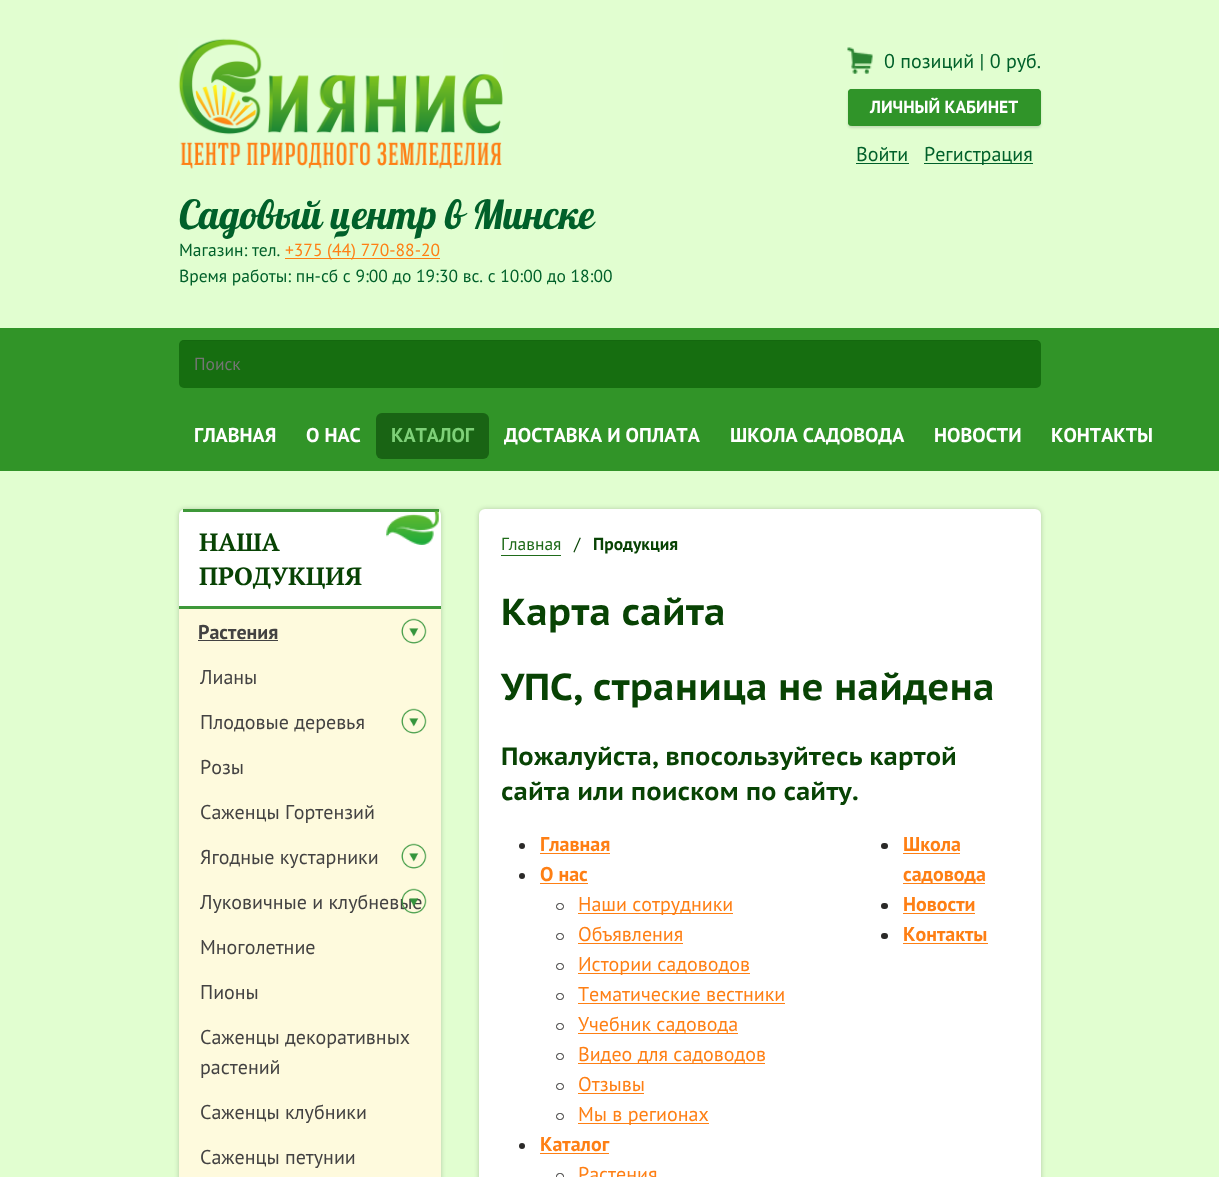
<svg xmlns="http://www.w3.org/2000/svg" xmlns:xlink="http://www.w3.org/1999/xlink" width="1219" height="1177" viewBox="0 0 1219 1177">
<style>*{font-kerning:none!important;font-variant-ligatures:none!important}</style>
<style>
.cls-1{font:20px PT Sans;fill:#00602a}
.cls-2{font:bold 17.5px PT Sans;fill:#ffffff}
.cls-3{font:40px Lobster;fill:#00602a}
.cls-4{font:17.5px PT Sans;fill:#00602a}
.cls-5{font:17.5px PT Sans;fill:#fe7f14}
.cls-6{font:17.5px PT Sans;fill:#757575}
.cls-7{font:bold 20px PT Sans;fill:#ffffff}
.cls-8{font:bold 20px PT Sans;fill:#7ed078}
.cls-9{font:bold 25px PT Serif;fill:#084304}
.cls-10{font:bold 20px PT Sans;fill:#434242}
.cls-11{font:20px PT Sans;fill:#434242}
.cls-12{font:17.5px PT Sans;fill:#1f6b1a}
.cls-13{font:17.5px PT Sans;fill:#084304}
.cls-14{font:bold 17.5px PT Sans;fill:#084304}
.cls-15{font:bold 37.5px PT Sans Caption;fill:#084304}
.cls-16{font:bold 25px PT Sans Caption;fill:#084304}
.cls-17{font:bold 20px PT Sans;fill:#fe7f14}
.cls-18{font:20px PT Sans;fill:#fe7f14}
</style>
<rect width="100%" height="100%" fill="#e1fed0"/>
<image xlink:href="image0.png" x="178" y="38" width="325" height="131"/>
<image xlink:href="image1.png" x="847" y="47" width="26" height="27"/>
<rect fill="#222426" fill-opacity="0.15" filter="blur(1px)" x="848" y="90" width="193" height="38" rx="4"/>
<rect fill="#309429" x="848" y="89" width="193" height="37" rx="4"/>
<path fill="#309429" fill-rule="evenodd" d="M852 89H1037C1039 89 1041 91 1041 93V122C1041 124 1039 126 1037 126H852C849 126 848 124 848 122V93C848 91 849 89 852 89ZM852 90H1037C1039 90 1040 91 1040 93V122C1040 124 1039 126 1037 126H852C850 126 849 124 849 122V93C849 91 850 90 852 90Z"/>
<rect fill="#00602a" x="856" y="163" width="53" height="1"/>
<rect fill="#00602a" x="924" y="163" width="109" height="1"/>
<rect fill="#fe7f14" x="285" y="258" width="155" height="1"/>
<rect fill="#319428" x="0" y="328" width="1219" height="143"/>
<rect fill="#166e10" x="179" y="340" width="862" height="48" rx="5"/>
<path fill="#000000" fill-opacity="0.05" d="M184 341H1036C1039 341 1041 343 1041 346V345C1041 342 1039 340 1036 340H184C181 340 179 342 179 345V346C179 343 181 341 184 341Z"/>
<rect fill="#196414" x="376" y="413" width="113" height="46" rx="6"/>
<rect fill="#000000" fill-opacity="0.2" filter="blur(2.5px)" x="179" y="509" width="262" height="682" rx="6"/>
<rect fill="#ffffff" x="179" y="509" width="262" height="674" rx="6"/>
<rect fill="#3e9839" x="183" y="509" width="256" height="3"/>
<rect fill="#3e9839" x="179" y="606" width="262" height="3"/>
<image xlink:href="image2.png" x="386" y="511" width="53" height="34"/>
<rect fill="#fefadd" x="179" y="609" width="262" height="568"/>
<rect fill="#434242" x="198" y="640" width="80" height="1"/>
<image xlink:href="image3.png" x="401" y="618" width="26" height="26"/>
<image xlink:href="image3.png" x="401" y="708" width="26" height="26"/>
<image xlink:href="image3.png" x="401" y="843" width="26" height="26"/>
<rect fill="#000000" fill-opacity="0.2" filter="blur(2.5px)" x="479" y="509" width="562" height="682" rx="6"/>
<rect fill="#ffffff" x="479" y="509" width="562" height="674" rx="6"/>
<rect fill="#1f6b1a" x="501" y="555" width="60" height="1"/>
<circle fill="#2b2a29" cx="522" cy="846" r="3"/>
<rect fill="#fe7f14" x="540" y="853" width="70" height="1"/>
<circle fill="#2b2a29" cx="522" cy="876" r="3"/>
<rect fill="#fe7f14" x="540" y="883" width="48" height="1"/>
<rect fill="none" stroke="#2b2a29" x="556.5" y="903.5" width="7" height="6" rx="3"/>
<rect fill="#fe7f14" x="578" y="913" width="155" height="1"/>
<rect fill="none" stroke="#2b2a29" x="556.5" y="933.5" width="7" height="6" rx="3"/>
<rect fill="#fe7f14" x="578" y="943" width="105" height="1"/>
<rect fill="none" stroke="#2b2a29" x="556.5" y="963.5" width="7" height="6" rx="3"/>
<rect fill="#fe7f14" x="578" y="973" width="172" height="1"/>
<rect fill="none" stroke="#2b2a29" x="556.5" y="993.5" width="7" height="6" rx="3"/>
<rect fill="#fe7f14" x="578" y="1003" width="207" height="1"/>
<rect fill="none" stroke="#2b2a29" x="556.5" y="1023.5" width="7" height="6" rx="3"/>
<rect fill="#fe7f14" x="578" y="1033" width="160" height="1"/>
<rect fill="none" stroke="#2b2a29" x="556.5" y="1053.5" width="7" height="6" rx="3"/>
<rect fill="#fe7f14" x="578" y="1063" width="187" height="1"/>
<rect fill="none" stroke="#2b2a29" x="556.5" y="1083.5" width="7" height="6" rx="3"/>
<rect fill="#fe7f14" x="578" y="1093" width="66" height="1"/>
<rect fill="none" stroke="#2b2a29" x="556.5" y="1113.5" width="7" height="6" rx="3"/>
<rect fill="#fe7f14" x="578" y="1123" width="131" height="1"/>
<circle fill="#2b2a29" cx="522" cy="1146" r="3"/>
<rect fill="#fe7f14" x="540" y="1153" width="69" height="1"/>
<rect fill="none" stroke="#2b2a29" x="556.5" y="1173.5" width="7" height="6" rx="3"/>
<rect fill="#2b2a29" x="881" y="843" width="7" height="6" rx="3"/>
<rect fill="#fe7f14" x="903" y="853" width="57" height="1"/>
<rect fill="#fe7f14" x="903" y="883" width="82" height="1"/>
<rect fill="#2b2a29" x="881" y="903" width="7" height="6" rx="3"/>
<rect fill="#fe7f14" x="903" y="913" width="72" height="1"/>
<rect fill="#2b2a29" x="881" y="933" width="7" height="6" rx="3"/>
<rect fill="#fe7f14" x="903" y="943" width="85" height="1"/>
<text class="cls-1" x="884" y="68">0 позиций | 0 руб.</text>
<text class="cls-2" x="870" y="113">ЛИЧНЫЙ КАБИНЕТ</text>
<text class="cls-1" x="856" y="161">Войти</text>
<text class="cls-1" x="924" y="161">Регистрация</text>
<text class="cls-3" x="179" y="229">Садовый центр в Минске</text>
<text class="cls-4" x="179" y="256">Магазин: тел.</text>
<text class="cls-5" x="285" y="256">+375 (44) 770-88-20</text>
<text class="cls-4" x="179" y="282">Время работы: пн-сб с 9:00 до 19:30 вс. с 10:00 до 18:00</text>
<text class="cls-6" x="194" y="370">Поиск</text>
<text class="cls-7" x="194" y="442">ГЛАВНАЯ</text>
<text class="cls-7" x="306" y="442">О НАС</text>
<text class="cls-8" x="391" y="442">КАТАЛОГ</text>
<text class="cls-7" x="504" y="442">ДОСТАВКА И ОПЛАТА</text>
<text class="cls-7" x="730" y="442">ШКОЛА САДОВОДА</text>
<text class="cls-7" x="934" y="442">НОВОСТИ</text>
<text class="cls-7" x="1051" y="442">КОНТАКТЫ</text>
<text class="cls-9"><tspan x="199" y="551">НАША</tspan><tspan x="199" y="585">ПРОДУКЦИЯ</tspan></text>
<text class="cls-10" x="198" y="639">Растения</text>
<text class="cls-11" x="200" y="684">Лианы</text>
<text class="cls-11" x="200" y="729">Плодовые деревья</text>
<text class="cls-11" x="200" y="774">Розы</text>
<text class="cls-11" x="200" y="819">Саженцы Гортензий</text>
<text class="cls-11" x="200" y="864">Ягодные кустарники</text>
<text class="cls-11" x="200" y="909">Луковичные и клубневые</text>
<image xlink:href="image4.png" x="401" y="888" width="26" height="26"/>
<text class="cls-11" x="200" y="954">Многолетние</text>
<text class="cls-11" x="200" y="999">Пионы</text>
<text class="cls-11"><tspan x="200" y="1044">Саженцы декоративных</tspan><tspan x="200" y="1074">растений</tspan></text>
<text class="cls-11" x="200" y="1119">Саженцы клубники</text>
<text class="cls-11" x="200" y="1164">Саженцы петунии</text>
<text class="cls-12" x="501" y="550">Главная</text>
<text class="cls-13" x="574" y="550">/</text>
<text class="cls-14" x="593" y="550">Продукция</text>
<text class="cls-15" x="501" y="625">Карта сайта</text>
<text class="cls-15" x="501" y="700">УПС, страница не найдена</text>
<text class="cls-16"><tspan x="501" y="765">Пожалуйста, впосользуйтесь картой</tspan><tspan x="501" y="800">сайта или поиском по сайту.</tspan></text>
<text class="cls-17"><tspan x="540" y="851">Главная</tspan><tspan x="540" y="881">О нас</tspan></text>
<text class="cls-18"><tspan x="578" y="911">Наши сотрудники</tspan><tspan x="578" y="941">Объявления</tspan><tspan x="578" y="971">Истории садоводов</tspan><tspan x="578" y="1001">Тематические вестники</tspan><tspan x="578" y="1031">Учебник садовода</tspan><tspan x="578" y="1061">Видео для садоводов</tspan><tspan x="578" y="1091">Отзывы</tspan><tspan x="578" y="1121">Мы в регионах</tspan></text>
<text class="cls-17" x="540" y="1151">Каталог</text>
<text class="cls-18" x="578" y="1181">Растения</text>
<text class="cls-17"><tspan x="903" y="851">Школа</tspan><tspan x="903" y="881">садовода</tspan><tspan x="903" y="911">Новости</tspan><tspan x="903" y="941">Контакты</tspan></text>
</svg>
